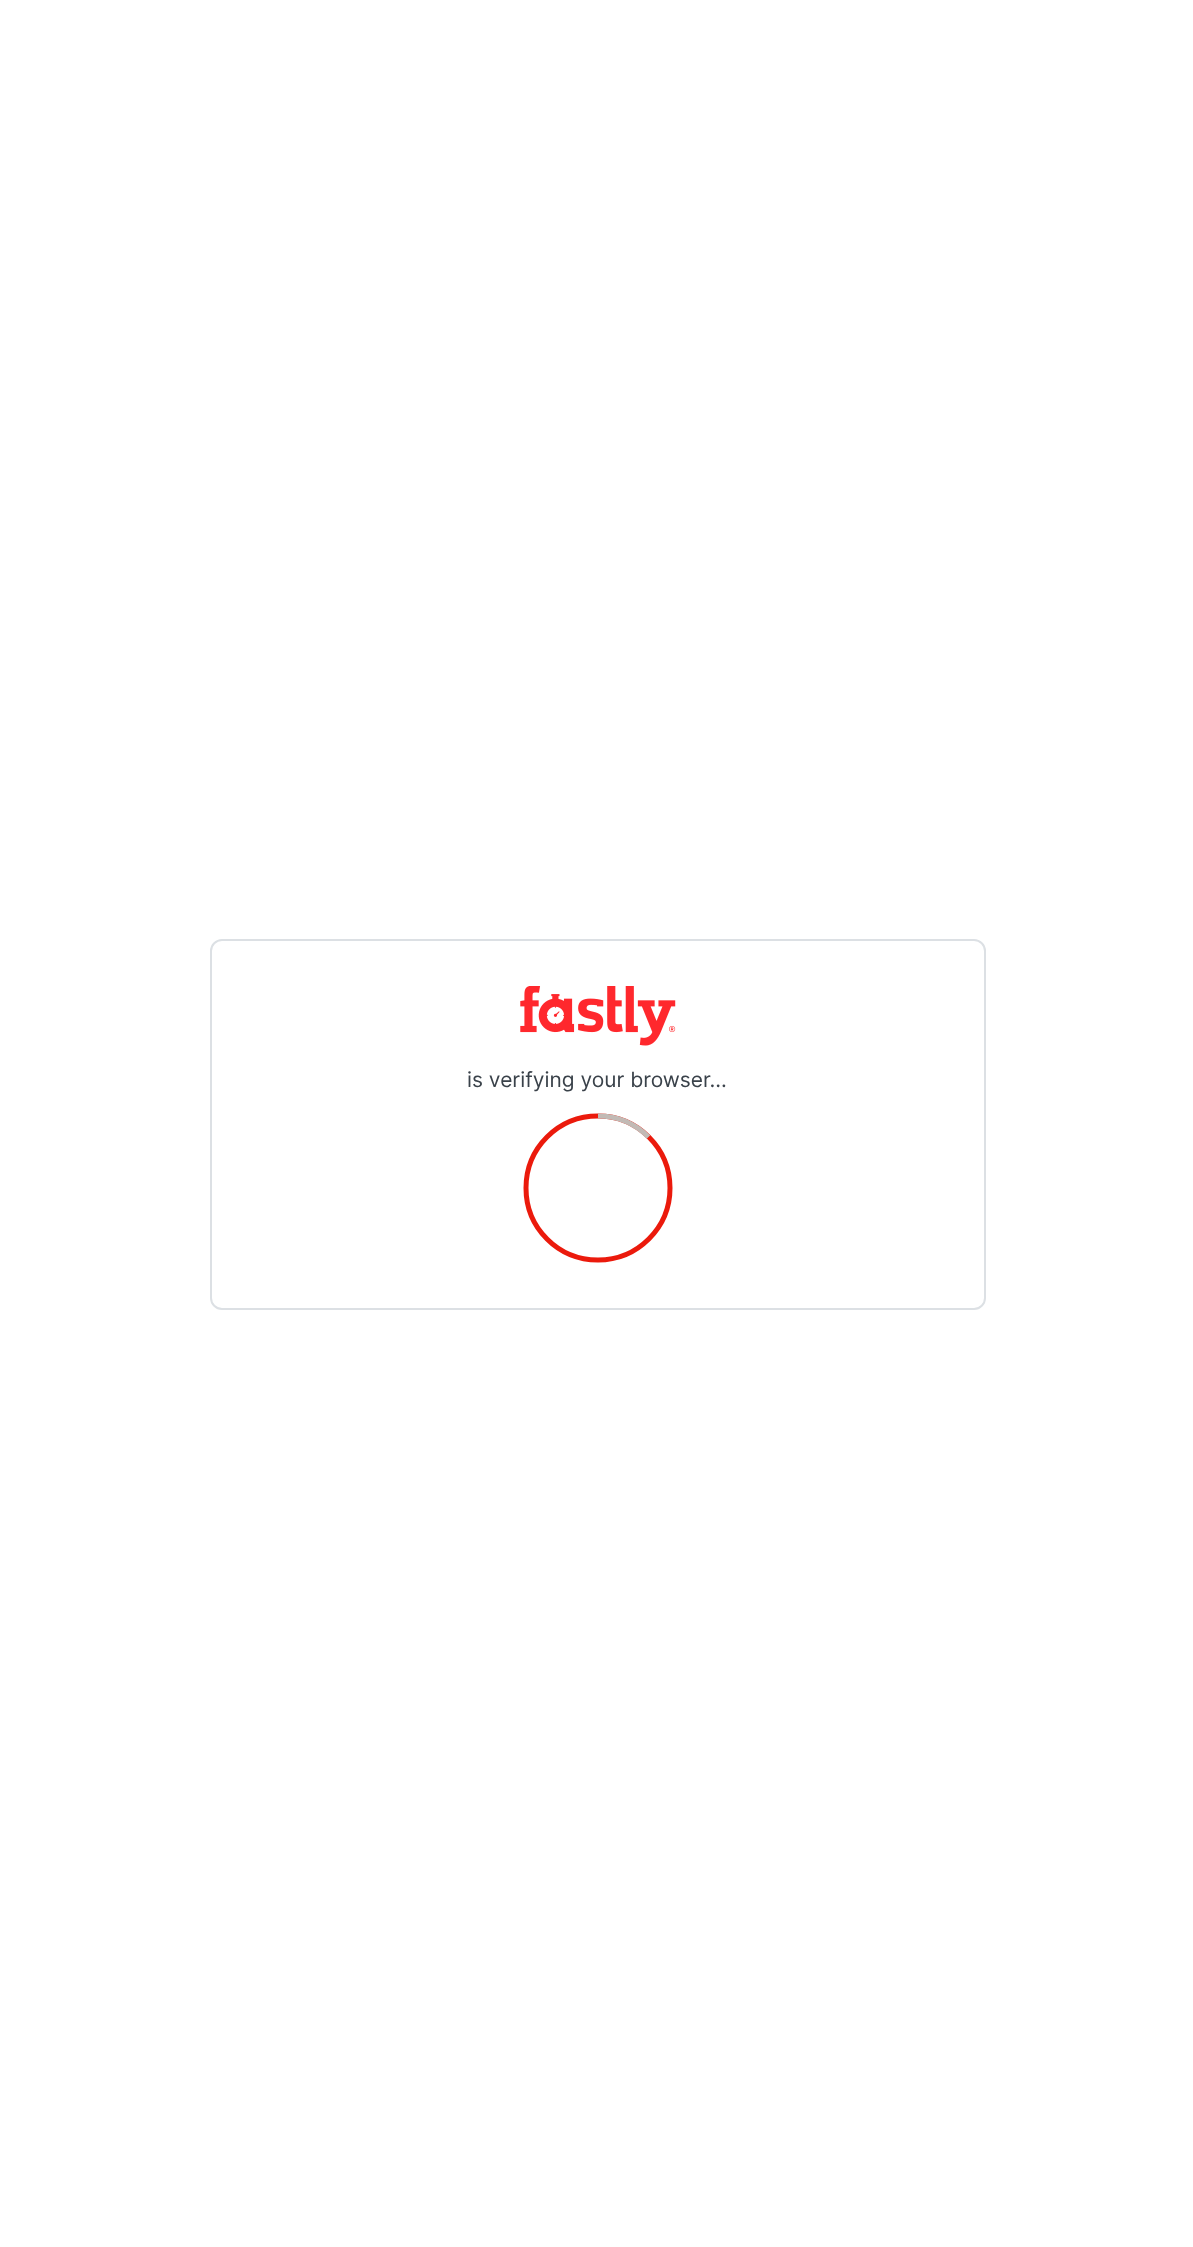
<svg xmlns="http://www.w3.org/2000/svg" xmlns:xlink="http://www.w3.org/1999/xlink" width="1193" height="2247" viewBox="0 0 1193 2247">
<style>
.cls-1{font:21px Inter;fill:#3a424a}
</style>
<rect width="100%" height="100%" fill="#ffffff"/>
<rect fill="none" stroke="#dce0e4" stroke-width="2" x="211" y="940" width="774" height="369" rx="11"/>
<image xlink:href="image0.png" x="520" y="986" width="156" height="60"/>
<path fill="none" stroke="#eb1a0c" stroke-width="5" d="M526 1188C526 1148 558 1116 598 1116C637.5 1116 670 1148 670 1188C670 1228 637.5 1260 598 1260C558 1260 526 1228 526 1188Z"/>
<path fill="none" stroke="#c2bab5" stroke-width="5" d="M648.5 1137C635 1123.5 617 1116 598 1116"/>
<text class="cls-1" x="467" y="1087">is verifying your browser...</text>
</svg>
